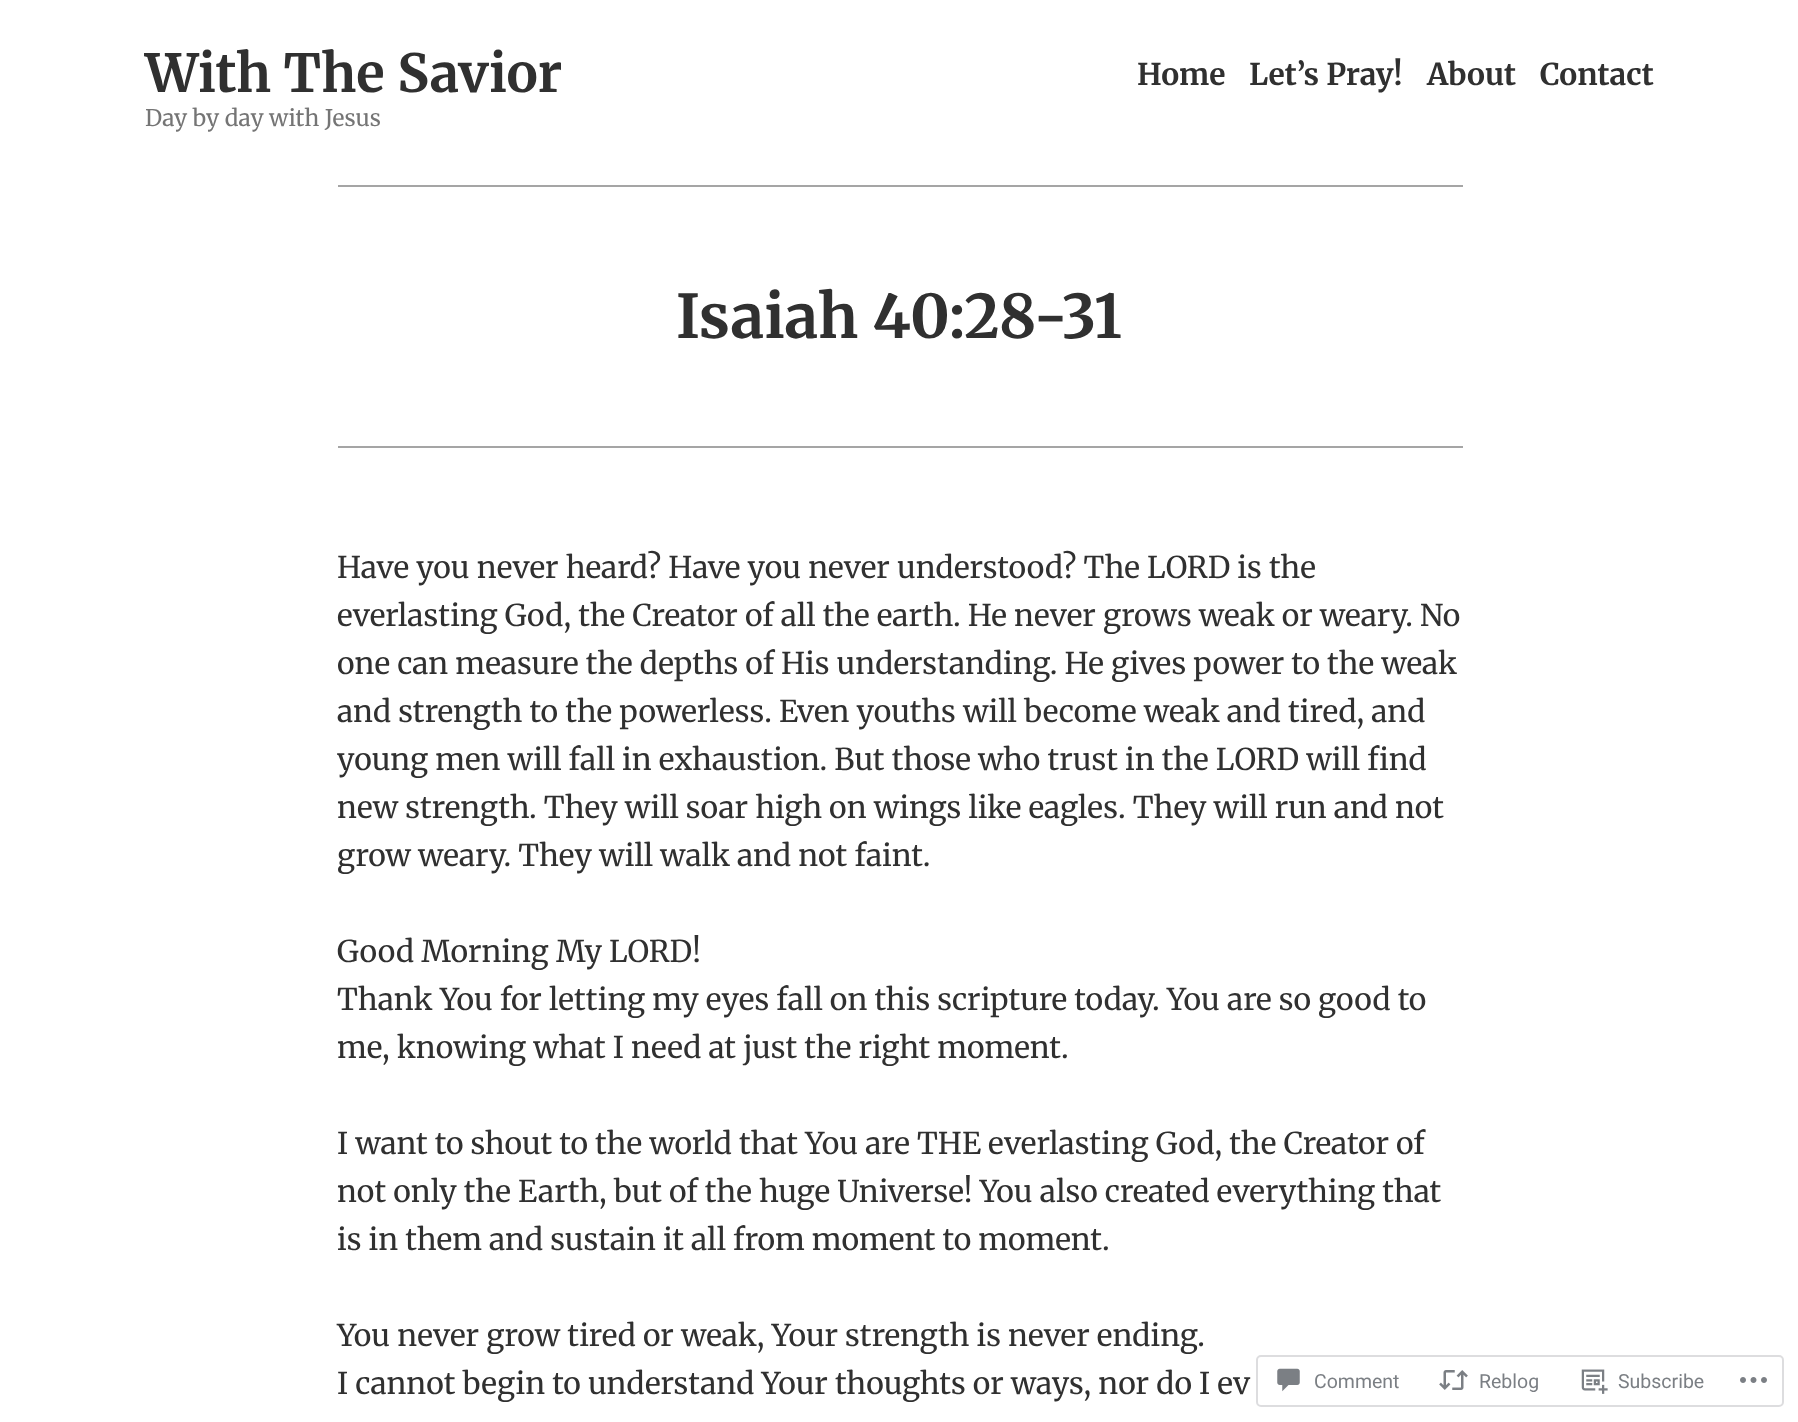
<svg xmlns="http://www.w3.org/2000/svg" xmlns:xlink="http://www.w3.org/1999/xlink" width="1798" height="1422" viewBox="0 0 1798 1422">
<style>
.cls-1{font:bold 52.5px Merriweather;fill:#303030}
.cls-2{font:bold 30px Merriweather;fill:#303030}
.cls-3{font:22.75px Merriweather;fill:#757575}
.cls-4{font:bold 60.25px Merriweather;fill:#303030}
.cls-5{font:30px Merriweather;fill:#303030}
.cls-6{font:19.5px Roboto;fill:#7b7f84}
</style>
<rect width="100%" height="100%" fill="#ffffff"/>
<rect fill="#a5a5a5" x="338" y="185" width="1125" height="2"/>
<rect fill="#a5a5a5" x="338" y="446" width="1125" height="2"/>
<rect fill="none" stroke="#dcdcde" stroke-opacity="0.98" stroke-width="2" x="1257" y="1356" width="526" height="50" rx="4"/>
<image xlink:href="image0.png" x="1277" y="1368" width="23" height="24"/>
<image xlink:href="image1.png" x="1439" y="1370" width="29" height="20"/>
<image xlink:href="image2.png" x="1581" y="1369" width="27" height="25"/>
<image xlink:href="image3.png" x="1740" y="1377" width="27" height="6"/>
<text class="cls-1" x="145" y="92">With The Savior</text>
<text class="cls-2" x="1137" y="85">Home</text>
<text class="cls-2" x="1249" y="85">Let’s Pray!</text>
<text class="cls-2" x="1427" y="85">About</text>
<text class="cls-2" x="1540" y="85">Contact</text>
<text class="cls-3" x="145" y="126">Day by day with Jesus</text>
<text class="cls-4" x="676" y="338">Isaiah 40:28-31</text>
<text class="cls-5"><tspan x="337" y="578">Have you never heard? Have you never understood? The LORD is the</tspan><tspan x="337" y="626">everlasting God, the Creator of all the earth. He never grows weak or weary. No</tspan><tspan x="337" y="674">one can measure the depths of His understanding. He gives power to the weak</tspan><tspan x="337" y="722">and strength to the powerless. Even youths will become weak and tired, and</tspan><tspan x="337" y="770">young men will fall in exhaustion. But those who trust in the LORD will find</tspan><tspan x="337" y="818">new strength. They will soar high on wings like eagles. They will run and not</tspan><tspan x="337" y="866">grow weary. They will walk and not faint.</tspan></text>
<text class="cls-5"><tspan x="337" y="962">Good Morning My LORD!</tspan><tspan x="337" y="1010">Thank You for letting my eyes fall on this scripture today. You are so good to</tspan><tspan x="337" y="1058">me, knowing what I need at just the right moment.</tspan></text>
<text class="cls-5"><tspan x="337" y="1154">I want to shout to the world that You are THE everlasting God, the Creator of</tspan><tspan x="337" y="1202">not only the Earth, but of the huge Universe! You also created everything that</tspan><tspan x="337" y="1250">is in them and sustain it all from moment to moment.</tspan></text>
<text class="cls-5"><tspan x="337" y="1346">You never grow tired or weak, Your strength is never ending.</tspan><tspan x="337" y="1394">I cannot begin to understand Your thoughts or ways, nor do I ev</tspan></text>
<text class="cls-6" x="1314" y="1388">Comment</text>
<text class="cls-6" x="1479" y="1388">Reblog</text>
<text class="cls-6" x="1618" y="1388">Subscribe</text>
</svg>
